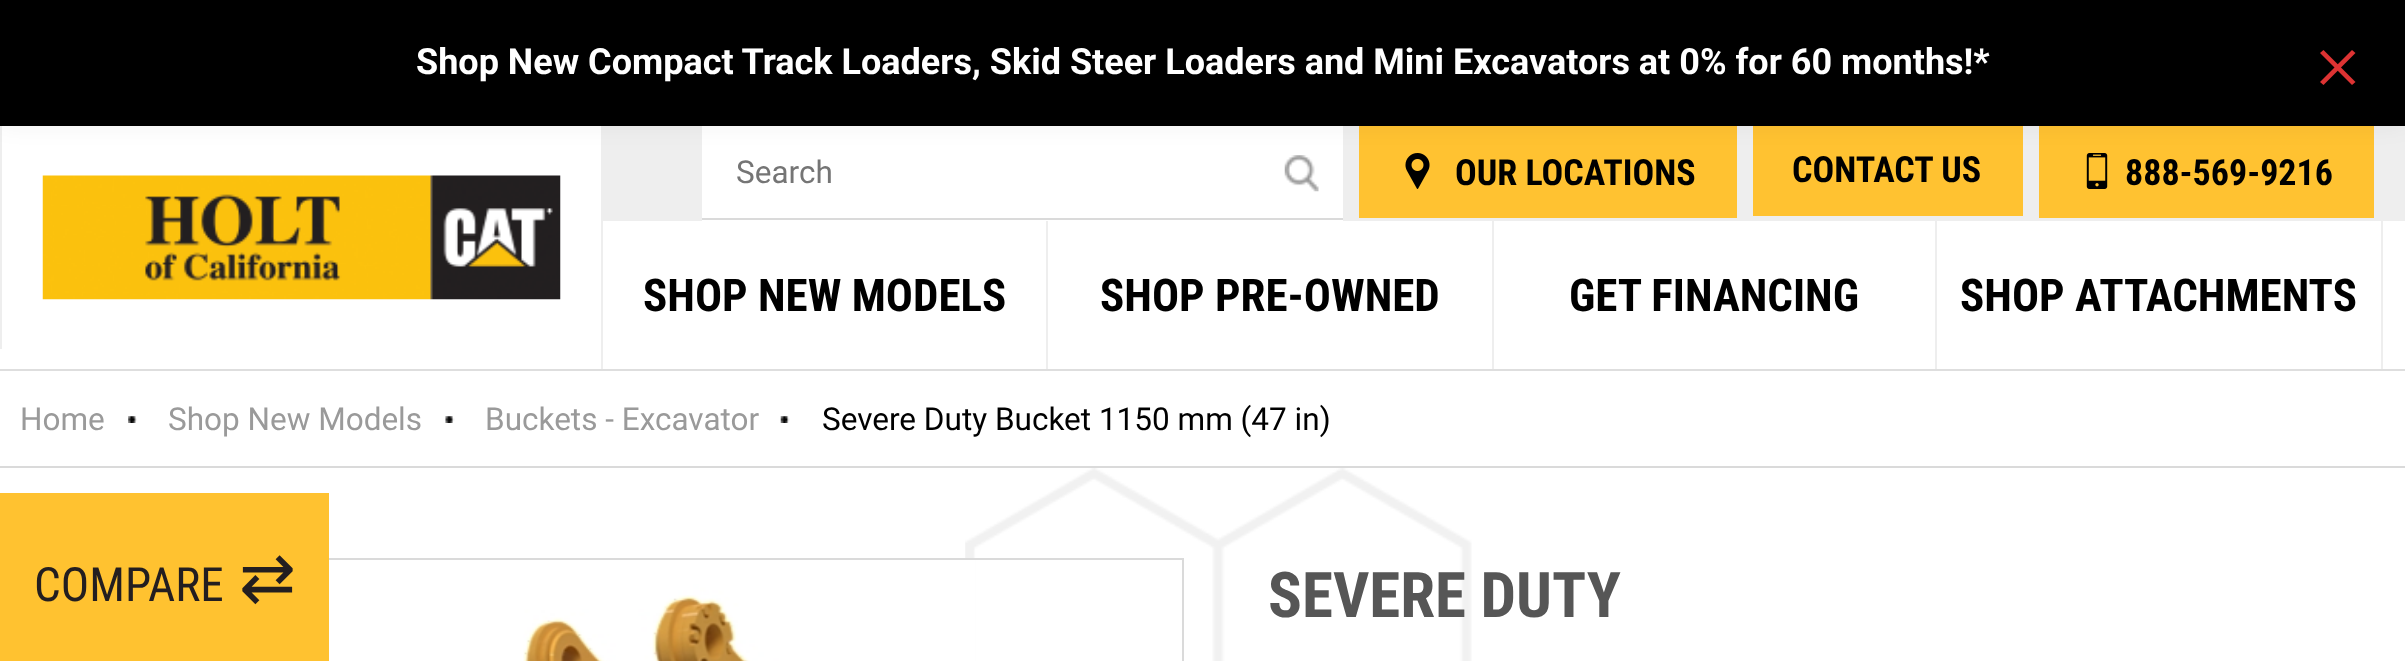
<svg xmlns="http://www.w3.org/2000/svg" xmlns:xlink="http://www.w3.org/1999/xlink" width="2405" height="661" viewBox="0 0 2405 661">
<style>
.cls-1{font:bold 36px Roboto;fill:#ffffff}
.cls-2{font:31.5px Roboto;fill:#757575}
.cls-3{font:bold 36px Roboto Condensed;fill:#000000}
.cls-4{font:bold 45px Roboto Condensed;fill:#000000}
.cls-5{font:31.5px Roboto;fill:#9a9a9a}
.cls-6{font:31.5px Roboto;fill:#000000}
.cls-7{font:47.25px Roboto Condensed;fill:#231e20}
.cls-8{font:68px DejaVu Sans;fill:#231e20}
.cls-9{font:bold 63px Roboto Condensed;fill:#565656}
</style>
<rect width="100%" height="100%" fill="#ffffff"/>
<rect fill="#eeeeee" x="603" y="126" width="1802" height="95"/>
<rect fill="#eeeeee" x="0" y="126" width="2" height="223"/>
<rect fill="#eeeeee" x="601" y="126" width="2" height="243"/>
<rect fill="#ffffff" x="702" y="126" width="641" height="95"/>
<image xlink:href="image1.png" x="1284" y="155" width="35" height="37"/>
<rect fill="#ffc231" x="1359" y="126" width="378" height="92"/>
<image xlink:href="image2.png" x="1405" y="153" width="25" height="36"/>
<rect fill="#ffc231" x="1753" y="126" width="270" height="90"/>
<rect fill="#ffc231" x="2039" y="126" width="335" height="92"/>
<image xlink:href="image3.png" x="2086" y="153" width="22" height="36"/>
<rect fill="#000000" fill-opacity="0.05" filter="blur(11px)" x="0" y="0" width="2405" height="126"/>
<rect fill="#000000" x="0" y="0" width="2405" height="126"/>
<path fill="#dd3333" d="M2320 53L2323.5 50L2355.5 82L2352 85Z"/>
<path fill="#dd3333" d="M2352 50L2355.5 53L2323.5 85L2320 82Z"/>
<rect fill="#dedede" x="0" y="369" width="2405" height="2"/>
<image xlink:href="image0.png" x="42" y="175" width="519" height="125"/>
<rect fill="#dadada" x="702" y="218" width="641" height="2"/>
<rect fill="#eeeeee" x="1046" y="221" width="2" height="148"/>
<rect fill="#eeeeee" x="1492" y="221" width="2" height="148"/>
<rect fill="#eeeeee" x="1935" y="221" width="2" height="148"/>
<rect fill="#eeeeee" x="2381" y="221" width="2" height="148"/>
<rect fill="#dadada" x="0" y="466" width="2405" height="2"/>
<image xlink:href="image4.png" x="128" y="416" width="9" height="7"/>
<image xlink:href="image5.png" x="445" y="416" width="10" height="7"/>
<image xlink:href="image6.png" x="780" y="416" width="10" height="7"/>
<image xlink:href="image7.png" x="965" y="468" width="507" height="193"/>
<rect fill="none" stroke="#dadada" stroke-width="2" x="21" y="559" width="1162" height="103"/>
<rect fill="#ffc230" x="0" y="493" width="329" height="168"/>
<image xlink:href="image8.png" x="523" y="560" width="452" height="101"/>
<text class="cls-1" x="416" y="74">Shop New Compact Track Loaders, Skid Steer Loaders and Mini Excavators at 0% for 60 months!*</text>
<text class="cls-2" x="736" y="183">Search</text>
<text class="cls-3" x="1455" y="185">OUR LOCATIONS</text>
<text class="cls-3" x="1792" y="182">CONTACT US</text>
<text class="cls-3" x="2125" y="185">888-569-9216</text>
<text class="cls-4" x="643" y="311">SHOP NEW MODELS</text>
<text class="cls-4" x="1100" y="311">SHOP PRE-OWNED</text>
<text class="cls-4" x="1569" y="311">GET FINANCING</text>
<text class="cls-4" x="1960" y="311">SHOP ATTACHMENTS</text>
<text class="cls-5" x="20" y="430">Home</text>
<text class="cls-5" x="168" y="430">Shop New Models</text>
<text class="cls-5" x="485" y="430">Buckets - Excavator</text>
<text class="cls-6" x="822" y="430">Severe Duty Bucket 1150 mm (47 in)</text>
<text class="cls-7" x="34" y="601">COMPARE</text>
<text class="cls-8" x="239" y="601">⇄</text>
<text class="cls-9" x="1268" y="617">SEVERE DUTY</text>
</svg>
